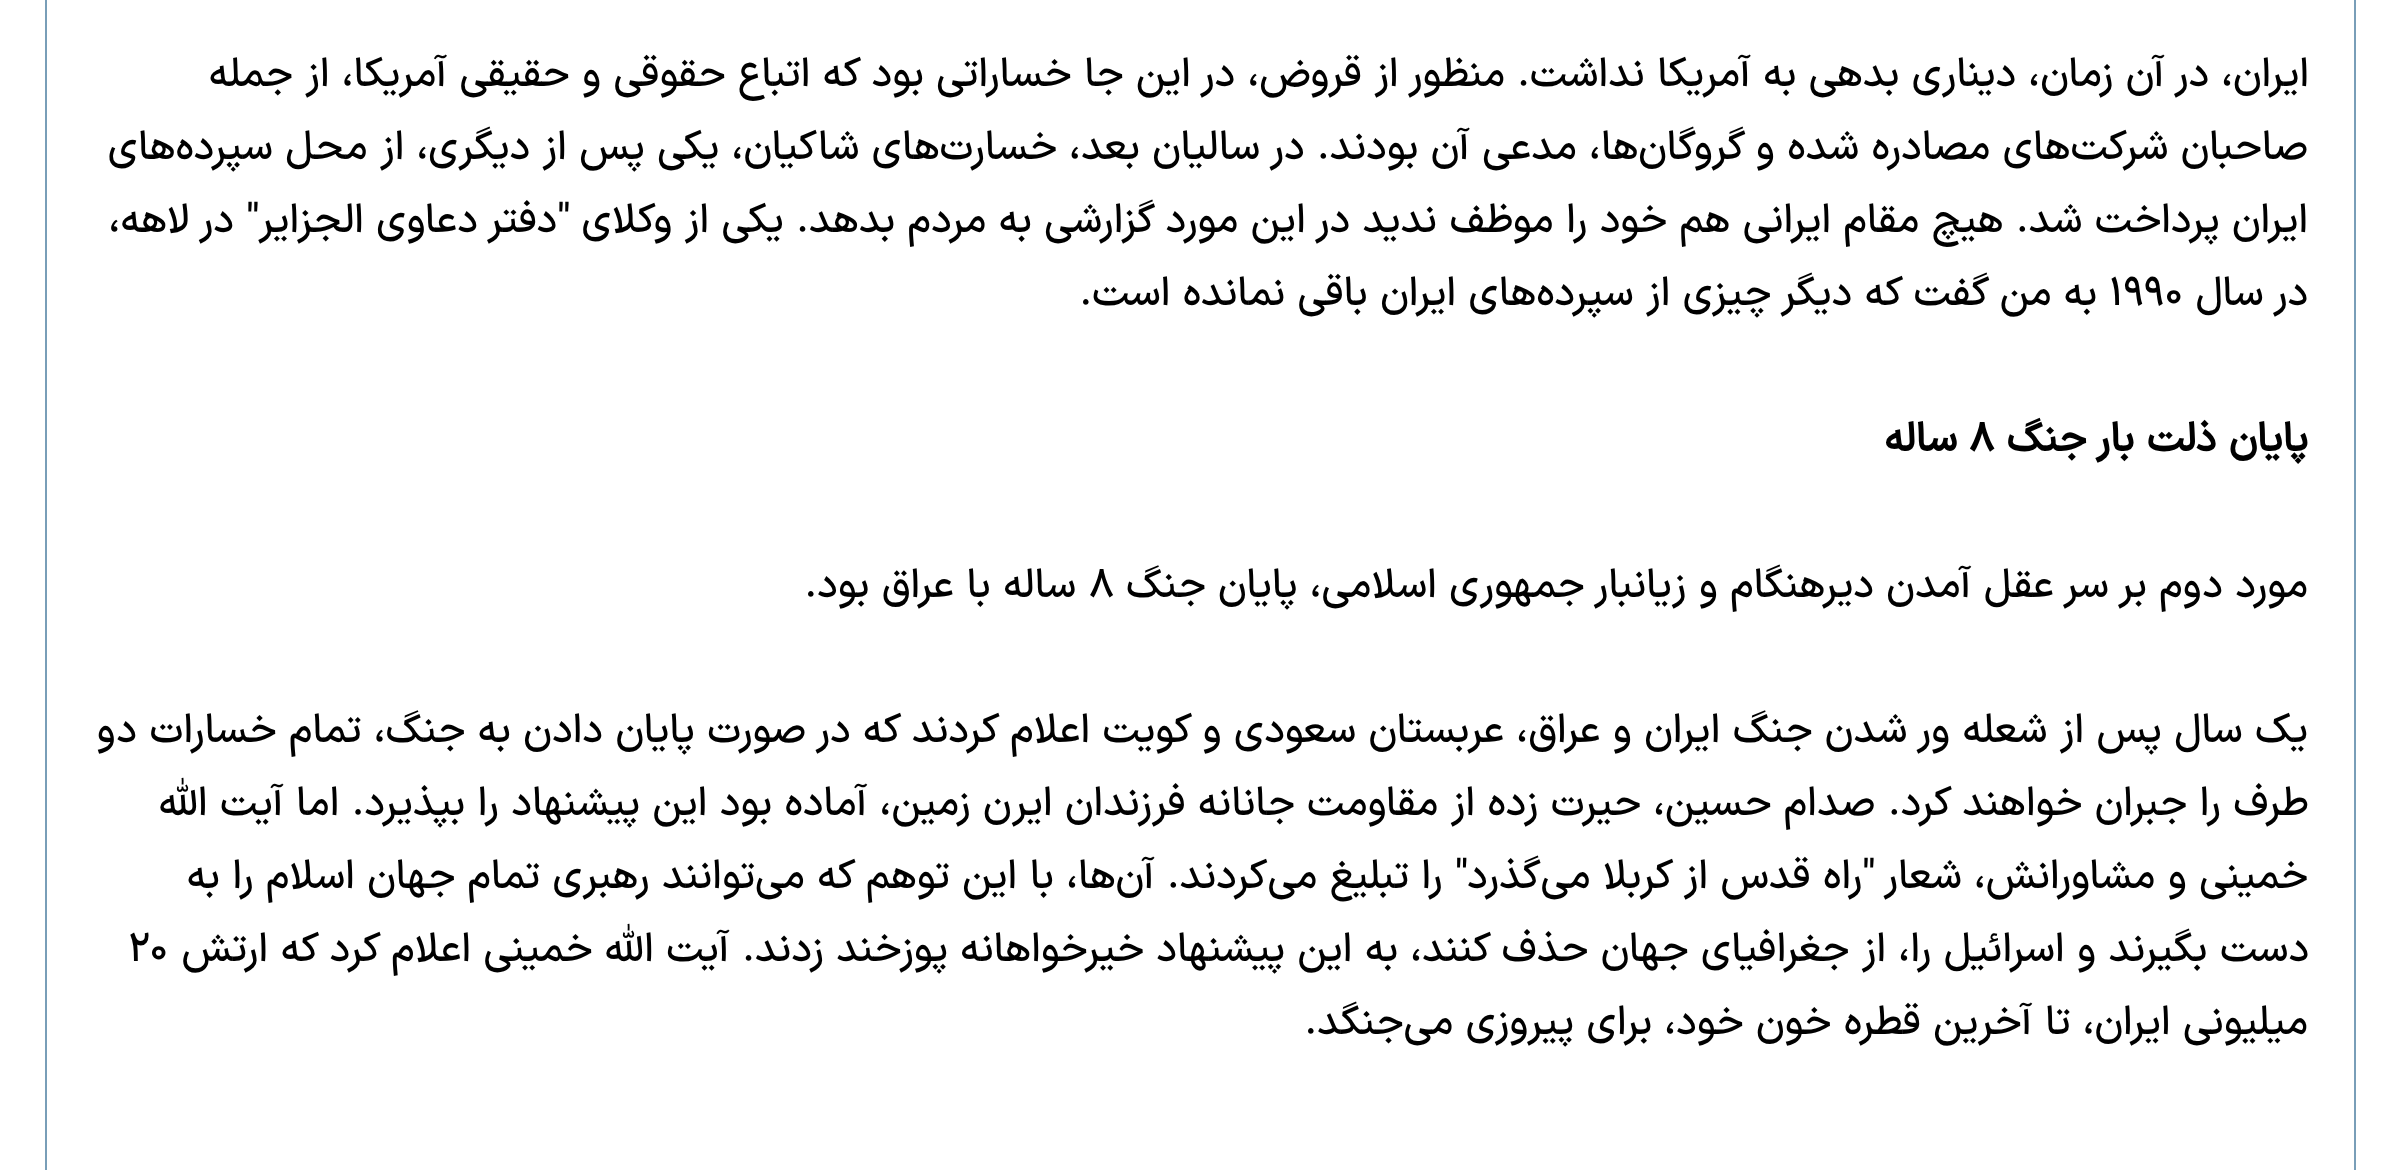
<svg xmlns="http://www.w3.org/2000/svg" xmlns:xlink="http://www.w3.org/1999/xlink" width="2399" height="1170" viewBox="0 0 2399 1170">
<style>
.cls-1{font:500 40.5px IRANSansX;direction:rtl;fill:#000000}
.cls-2{font:500 40.5px IRANSansX;fill:#000000}
.cls-3{font:bold 40.5px IRANSansX;direction:rtl;fill:#000000}
.cls-4{font:bold 40.5px IRANSansX;fill:#000000}
</style>
<rect width="100%" height="100%" fill="#ffffff"/>
<rect fill="none" stroke="#799eb8" stroke-width="2" x="46" y="-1" width="2309" height="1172"/>
<text class="cls-1" x="2309" y="86">ایران، در آن زمان، دیناری بدهی به آمریکا نداشت. منظور از قروض، در این جا خساراتی بود که اتباع حقوقی و حقیقی آمریکا، از جمله</text>
<text class="cls-1"><tspan x="2308" y="159">صاحبان شرکت‌های مصادره شده و گروگان‌ها، مدعی آن بودند. در سالیان بعد، خسارت‌های شاکیان، یکی پس از دیگری، از محل سپرده‌های</tspan><tspan x="2308" y="232">ایران پرداخت شد. هیچ مقام ایرانی هم خود را موظف ندید در این مورد گزارشی به مردم بدهد. یکی از وکلای "دفتر دعاوی الجزایر" در لاهه،</tspan><tspan x="2308" y="305">در سال</tspan></text>
<text class="cls-2" x="2109" y="305">۱۹۹۰</text>
<text class="cls-1" x="2097" y="305">به من گفت که دیگر چیزی از سپرده‌های ایران باقی نمانده است.</text>
<text class="cls-3" x="2308" y="451">پایان ذلت بار جنگ</text>
<text class="cls-4" x="1969" y="451">۸</text>
<text class="cls-3" x="1957" y="451">ساله</text>
<text class="cls-1" x="2308" y="597">مورد دوم بر سر عقل آمدن دیرهنگام و زیانبار جمهوری اسلامی، پایان جنگ</text>
<text class="cls-2" x="1089" y="597">۸</text>
<text class="cls-1" x="1076" y="597">ساله با عراق بود.</text>
<text class="cls-1" x="2308" y="742">یک سال پس از شعله ور شدن جنگ ایران و عراق، عربستان سعودی و کویت اعلام کردند که در صورت پایان دادن به جنگ، تمام خسارات دو</text>
<text class="cls-1" x="2309" y="815">طرف را جبران خواهند کرد. صدام حسین، حیرت زده از مقاومت جانانه فرزندان ایرن زمین، آماده بود این پیشنهاد را بپذیرد. اما آیت الله</text>
<text class="cls-1" x="2308" y="888">خمینی و مشاورانش، شعار "راه قدس از کربلا می‌گذرد" را تبلیغ می‌کردند. آن‌ها، با این توهم که می‌توانند رهبری تمام جهان اسلام را به</text>
<text class="cls-1" x="2309" y="961">دست بگیرند و اسرائیل را، از جغرافیای جهان حذف کنند، به این پیشنهاد خیرخواهانه پوزخند زدند. آیت الله خمینی اعلام کرد که ارتش</text>
<text class="cls-2" x="128" y="961">۲۰</text>
<text class="cls-1" x="2308" y="1034">میلیونی ایران، تا آخرین قطره خون خود، برای پیروزی می‌جنگد.</text>
</svg>
